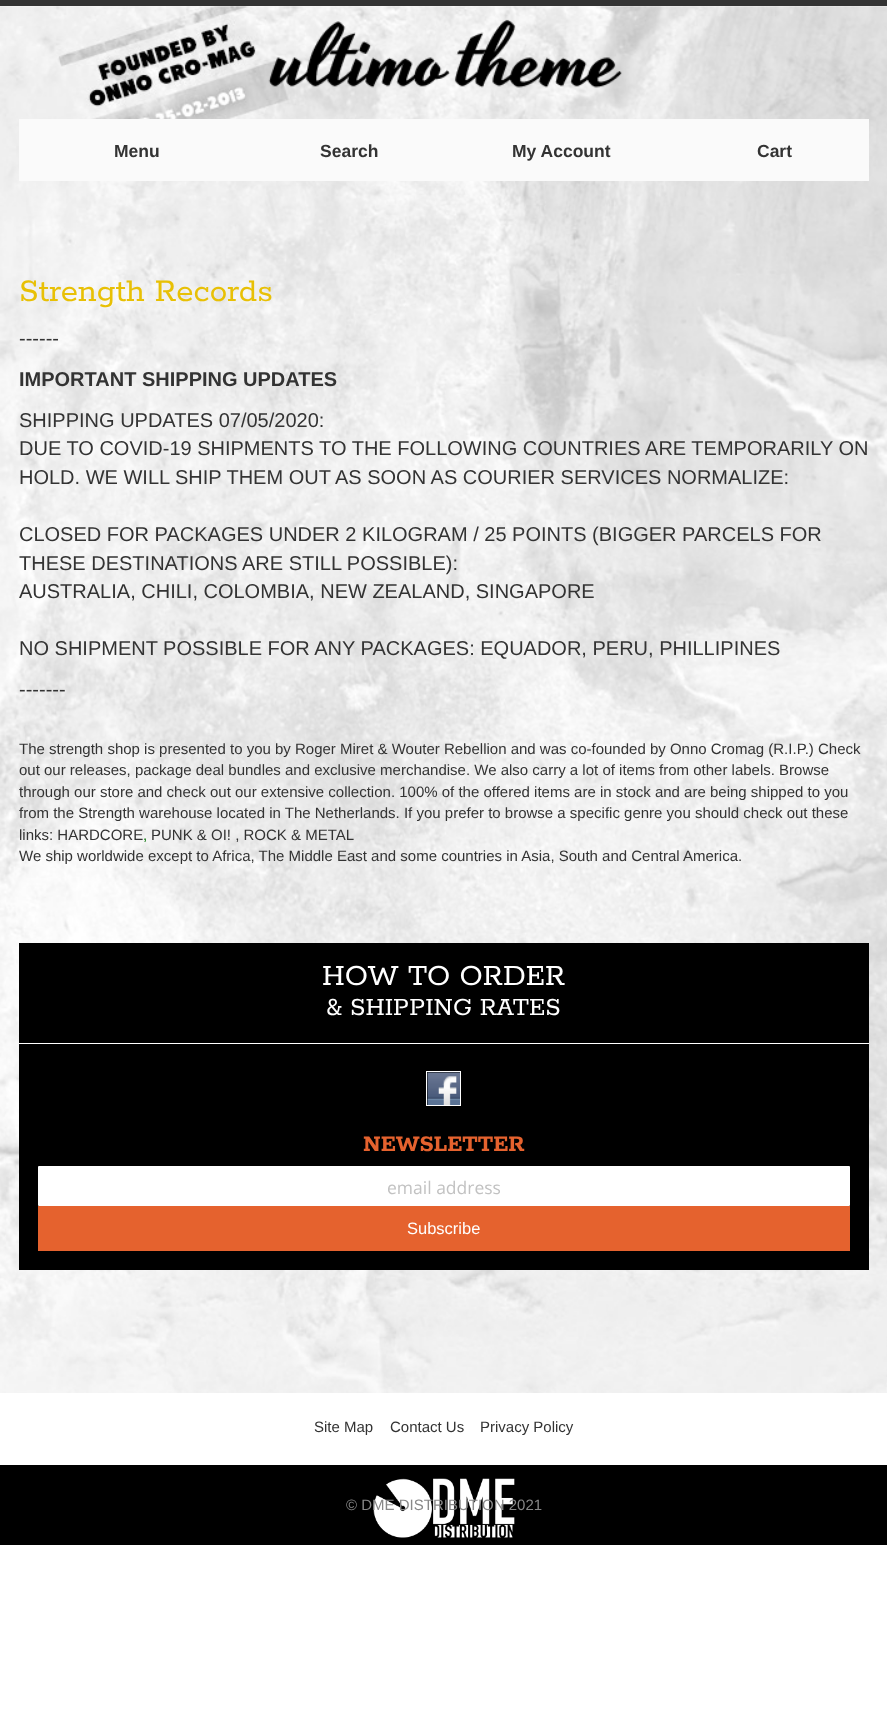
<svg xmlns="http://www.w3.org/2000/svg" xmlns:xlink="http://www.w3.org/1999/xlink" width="887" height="1736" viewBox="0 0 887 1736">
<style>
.cls-1{font:bold 17.5px Liberation Sans;fill:#333333}
.cls-2{font:35px Rokkitt;fill:#e8c005}
.cls-3{font:20px Liberation Sans;fill:#333333}
.cls-4{font:bold 20px Liberation Sans;fill:#333333}
.cls-5{font:15px Liberation Sans;fill:#333333}
.cls-6{font:15px Liberation Sans;fill:#007000}
.cls-7{font:32.5px Rokkitt;fill:#ffffff}
.cls-8{font:27.5px Rokkitt;fill:#ffffff}
.cls-9{font:bold 25px Rokkitt;fill:#e5622e}
.cls-10{font:17.5px Open Sans;fill:#c2c2c2}
.cls-11{font:16.5px Liberation Sans;fill:#ffffff}
.cls-12{font:15px Liberation Sans;fill:#888888}
</style>
<rect width="100%" height="100%" fill="#ffffff"/>
<image xlink:href="image0.png" x="0" y="6" width="887" height="1387"/>
<rect fill="#333333" x="0" y="0" width="887" height="6"/>
<image xlink:href="image1.png" x="268" y="19" width="354" height="69"/>
<rect fill="#fafafa" x="19" y="119" width="850" height="62"/>
<rect fill="#000000" x="19" y="943" width="850" height="327"/>
<rect fill="#ffffff" x="19" y="1043" width="850" height="1"/>
<rect fill="none" stroke="#ffffff" x="426.5" y="1071.5" width="34" height="34"/>
<image xlink:href="image2.png" x="427" y="1072" width="33" height="33"/>
<rect fill="#ffffff" x="38" y="1166" width="812" height="40" rx="1"/>
<rect fill="#e5622e" x="38" y="1206" width="812" height="45"/>
<rect fill="#000000" x="0" y="1465" width="887" height="80"/>
<image xlink:href="image3.png" x="373" y="1478" width="142" height="60"/>
<text class="cls-1" x="114" y="157">Menu</text>
<text class="cls-1" x="320" y="157">Search</text>
<text class="cls-1" x="512" y="157">My Account</text>
<text class="cls-1" x="757" y="157">Cart</text>
<text class="cls-2" x="19" y="301">Strength Records</text>
<text class="cls-3" x="19" y="345">------</text>
<text class="cls-4" x="19" y="386">IMPORTANT SHIPPING UPDATES</text>
<text class="cls-3"><tspan x="19" y="427">SHIPPING UPDATES 07/05/2020:</tspan><tspan x="19" y="455">DUE TO COVID-19 SHIPMENTS TO THE FOLLOWING COUNTRIES ARE TEMPORARILY ON</tspan><tspan x="19" y="484">HOLD. WE WILL SHIP THEM OUT AS SOON AS COURIER SERVICES NORMALIZE:</tspan></text>
<text class="cls-3"><tspan x="19" y="541">CLOSED FOR PACKAGES UNDER 2 KILOGRAM / 25 POINTS (BIGGER PARCELS FOR</tspan><tspan x="19" y="570">THESE DESTINATIONS ARE STILL POSSIBLE):</tspan><tspan x="19" y="598">AUSTRALIA, CHILI, COLOMBIA, NEW ZEALAND, SINGAPORE</tspan></text>
<text class="cls-3" x="19" y="655">NO SHIPMENT POSSIBLE FOR ANY PACKAGES: EQUADOR, PERU, PHILLIPINES</text>
<text class="cls-3" x="19" y="696">-------</text>
<text class="cls-5"><tspan x="19" y="754">The strength shop is presented to you by Roger Miret &amp; Wouter Rebellion and was co-founded by Onno Cromag (R.I.P.) Check</tspan><tspan x="19" y="775">out our releases, package deal bundles and exclusive merchandise. We also carry a lot of items from other labels. Browse</tspan><tspan x="19" y="797">through our store and check out our extensive collection. 100% of the offered items are in stock and are being shipped to you</tspan><tspan x="19" y="818">from the Strength warehouse located in The Netherlands. If you prefer to browse a specific genre you should check out these</tspan><tspan x="19" y="840">links: HARDCORE</tspan></text>
<text class="cls-6" x="143" y="840">,</text>
<text class="cls-5" x="151" y="840">PUNK &amp; OI! , ROCK &amp; METAL</text>
<text class="cls-5" x="19" y="861">We ship worldwide except to Africa, The Middle East and some countries in Asia, South and Central America.</text>
<text class="cls-7" x="322" y="985">HOW TO ORDER</text>
<text class="cls-8" x="326" y="1015">&amp; SHIPPING RATES</text>
<text class="cls-9" x="363" y="1151">NEWSLETTER</text>
<text class="cls-10" x="387" y="1194">email address</text>
<text class="cls-11" x="407" y="1234">Subscribe</text>
<text class="cls-5" x="314" y="1432">Site Map</text>
<text class="cls-5" x="390" y="1432">Contact Us</text>
<text class="cls-5" x="480" y="1432">Privacy Policy</text>
<text class="cls-12" x="346" y="1510">© DME DISTRIBUTION 2021</text>
</svg>
